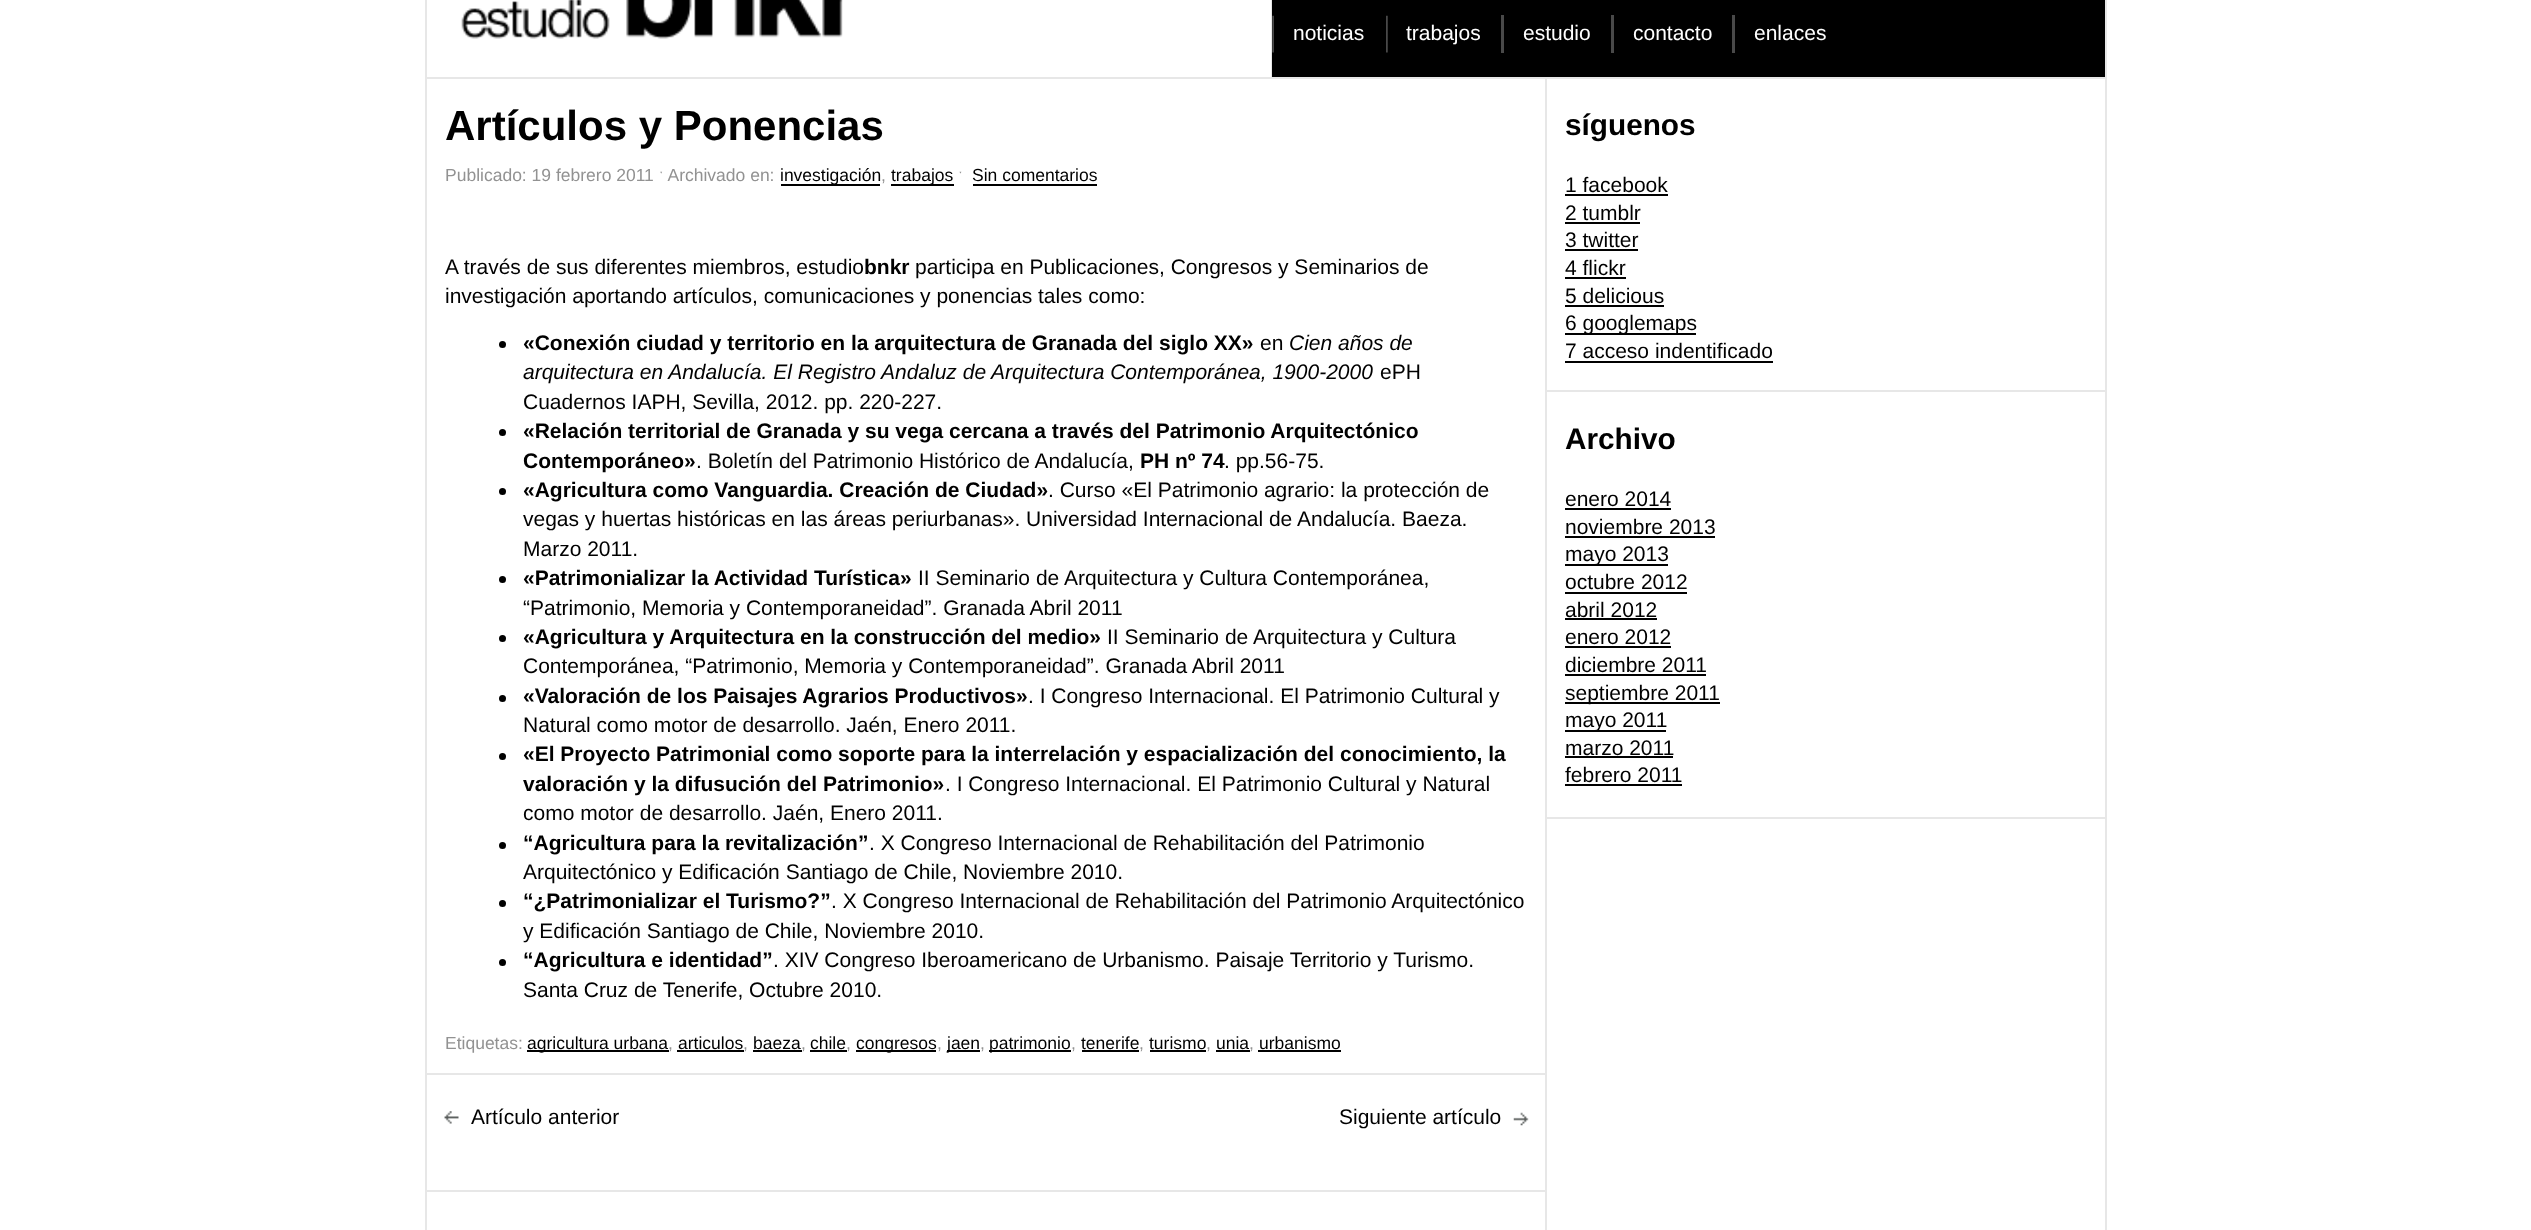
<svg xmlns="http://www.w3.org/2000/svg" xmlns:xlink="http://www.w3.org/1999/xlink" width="2531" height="1230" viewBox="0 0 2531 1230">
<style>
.cls-1{font:21px Liberation Sans;fill:#ffffff}
.cls-2{font:bold 42px Liberation Sans;fill:#000000}
.cls-3{font:17.5px Liberation Sans;fill:#929292}
.cls-4{font:17.5px Liberation Sans;fill:#000000}
.cls-5{font:21px Liberation Sans;fill:#000000}
.cls-6{font:bold 21px Liberation Sans;fill:#000000}
.cls-7{font:italic 21px Liberation Sans;fill:#000000}
.cls-8{font:bold 29.75px Liberation Sans;fill:#000000}
</style>
<rect width="100%" height="100%" fill="#ffffff"/>
<rect fill="#e7e7e7" x="2105" y="0" width="2" height="1230"/>
<rect fill="#e7e7e7" x="425" y="0" width="2" height="1230"/>
<rect fill="#e7e7e7" x="1547" y="77" width="558" height="2"/>
<rect fill="#e7e7e7" x="1271" y="0" width="1" height="77"/>
<image xlink:href="image0.png" x="461" y="0" width="382" height="39"/>
<rect fill="#000000" x="1272" y="0" width="833" height="77"/>
<image xlink:href="image1.png" x="1272" y="15" width="2" height="38"/>
<image xlink:href="image2.png" x="1386" y="15" width="2" height="38"/>
<rect fill="#494949" x="1501" y="15" width="3" height="38"/>
<rect fill="#494949" x="1611" y="15" width="3" height="38"/>
<rect fill="#494949" x="1732" y="15" width="3" height="38"/>
<rect fill="#e7e7e7" x="1545" y="77" width="2" height="1153"/>
<rect fill="#e7e7e7" x="427" y="77" width="1118" height="2"/>
<rect fill="#e7e7e7" x="427" y="1073" width="1118" height="2"/>
<rect fill="#000000" x="781" y="184" width="99" height="2"/>
<rect fill="#000000" x="891" y="184" width="63" height="2"/>
<rect fill="#000000" x="973" y="184" width="124" height="2"/>
<circle fill="#000000" cx="502.5" cy="344.5" r="3.5"/>
<circle fill="#000000" cx="502.5" cy="432.5" r="3.5"/>
<circle fill="#000000" cx="502.5" cy="491.5" r="3.5"/>
<circle fill="#000000" cx="502.5" cy="579.5" r="3.5"/>
<circle fill="#000000" cx="502.5" cy="638.5" r="3.5"/>
<circle fill="#000000" cx="502.5" cy="698.5" r="3.5"/>
<circle fill="#000000" cx="502.5" cy="756.5" r="3.5"/>
<circle fill="#000000" cx="502.5" cy="845.5" r="3.5"/>
<circle fill="#000000" cx="502.5" cy="903.5" r="3.5"/>
<circle fill="#000000" cx="502.5" cy="962.5" r="3.5"/>
<rect fill="#000000" x="527" y="1050" width="142" height="2"/>
<rect fill="#000000" x="677" y="1050" width="67" height="2"/>
<rect fill="#000000" x="753" y="1050" width="49" height="2"/>
<rect fill="#000000" x="810" y="1050" width="37" height="2"/>
<rect fill="#000000" x="856" y="1050" width="80" height="2"/>
<rect fill="#000000" x="947" y="1050" width="33" height="2"/>
<rect fill="#000000" x="989" y="1050" width="82" height="2"/>
<rect fill="#000000" x="1082" y="1050" width="57" height="2"/>
<rect fill="#000000" x="1150" y="1050" width="56" height="2"/>
<rect fill="#000000" x="1216" y="1050" width="34" height="2"/>
<rect fill="#000000" x="1258" y="1050" width="83" height="2"/>
<image xlink:href="image3.png" x="444" y="1111" width="15" height="13"/>
<image xlink:href="image4.png" x="1513" y="1112" width="16" height="14"/>
<rect fill="#e7e7e7" x="427" y="1190" width="1118" height="2"/>
<rect fill="#e7e7e7" x="1545" y="817" width="560" height="2"/>
<rect fill="#000000" x="1565" y="194" width="103" height="2"/>
<rect fill="#000000" x="1565" y="222" width="75" height="2"/>
<rect fill="#000000" x="1565" y="249" width="73" height="2"/>
<rect fill="#000000" x="1565" y="277" width="61" height="2"/>
<rect fill="#000000" x="1565" y="305" width="99" height="2"/>
<rect fill="#000000" x="1565" y="333" width="131" height="2"/>
<rect fill="#000000" x="1565" y="361" width="208" height="2"/>
<rect fill="#e7e7e7" x="1547" y="390" width="558" height="2"/>
<rect fill="#000000" x="1565" y="508" width="106" height="2"/>
<rect fill="#000000" x="1565" y="536" width="150" height="2"/>
<rect fill="#000000" x="1565" y="564" width="103" height="2"/>
<rect fill="#000000" x="1565" y="592" width="122" height="2"/>
<rect fill="#000000" x="1565" y="618" width="92" height="2"/>
<rect fill="#000000" x="1565" y="646" width="106" height="2"/>
<rect fill="#000000" x="1565" y="674" width="141" height="2"/>
<rect fill="#000000" x="1565" y="702" width="155" height="2"/>
<rect fill="#000000" x="1565" y="730" width="101" height="2"/>
<rect fill="#000000" x="1565" y="756" width="108" height="2"/>
<rect fill="#000000" x="1565" y="784" width="117" height="2"/>
<text class="cls-1" x="1293" y="40">noticias</text>
<text class="cls-1" x="1406" y="40">trabajos</text>
<text class="cls-1" x="1523" y="40">estudio</text>
<text class="cls-1" x="1633" y="40">contacto</text>
<text class="cls-1" x="1754" y="40">enlaces</text>
<text class="cls-2" x="445" y="140">Artículos y Ponencias</text>
<text class="cls-3" x="445" y="181">Publicado: 19 febrero 2011 ˑ Archivado en:</text>
<text class="cls-4" x="780" y="181">investigación</text>
<text class="cls-4" x="891" y="181">trabajos</text>
<text class="cls-3" x="958" y="181">ˑ</text>
<text class="cls-4" x="972" y="181">Sin comentarios</text>
<text class="cls-3" x="881" y="181">,</text>
<text class="cls-5" x="445" y="274">A través de sus diferentes miembros, estudio</text>
<text class="cls-6" x="864" y="274">bnkr</text>
<text class="cls-5" x="915" y="274">participa en Publicaciones, Congresos y Seminarios de</text>
<text class="cls-5" x="445" y="303">investigación aportando artículos, comunicaciones y ponencias tales como:</text>
<text class="cls-6" x="523" y="350">«Conexión ciudad y territorio en la arquitectura de Granada del siglo XX»</text>
<text class="cls-5" x="1260" y="350">en</text>
<text class="cls-7" x="1289" y="350">Cien años de</text>
<text class="cls-7" x="523" y="379">arquitectura en Andalucía. El Registro Andaluz de Arquitectura Contemporánea, 1900-2000</text>
<text class="cls-5" x="1380" y="379">ePH</text>
<text class="cls-5" x="523" y="409">Cuadernos IAPH, Sevilla, 2012. pp. 220-227.</text>
<text class="cls-6"><tspan x="523" y="438">«Relación territorial de Granada y su vega cercana a través del Patrimonio Arquitectónico</tspan><tspan x="523" y="468">Contemporáneo»</tspan></text>
<text class="cls-5" x="696" y="468">. Boletín del Patrimonio Histórico de Andalucía,</text>
<text class="cls-6" x="1140" y="468">PH nº 74</text>
<text class="cls-5" x="1224" y="468">. pp.56-75.</text>
<text class="cls-6" x="523" y="497">«Agricultura como Vanguardia. Creación de Ciudad»</text>
<text class="cls-5" x="1048" y="497">. Curso «El Patrimonio agrario: la protección de</text>
<text class="cls-5"><tspan x="523" y="526">vegas y huertas históricas en las áreas periurbanas». Universidad Internacional de Andalucía. Baeza.</tspan><tspan x="523" y="556">Marzo 2011.</tspan></text>
<text class="cls-6" x="523" y="585">«Patrimonializar la Actividad Turística»</text>
<text class="cls-5" x="918" y="585">II Seminario de Arquitectura y Cultura Contemporánea,</text>
<text class="cls-5" x="523" y="615">“Patrimonio, Memoria y Contemporaneidad”. Granada Abril 2011</text>
<text class="cls-6" x="523" y="644">«Agricultura y Arquitectura en la construcción del medio»</text>
<text class="cls-5" x="1107" y="644">II Seminario de Arquitectura y Cultura</text>
<text class="cls-5" x="523" y="673">Contemporánea, “Patrimonio, Memoria y Contemporaneidad”. Granada Abril 2011</text>
<text class="cls-6" x="523" y="703">«Valoración de los Paisajes Agrarios Productivos»</text>
<text class="cls-5" x="1028" y="703">. I Congreso Internacional. El Patrimonio Cultural y</text>
<text class="cls-5" x="523" y="732">Natural como motor de desarrollo. Jaén, Enero 2011.</text>
<text class="cls-6"><tspan x="523" y="761">«El Proyecto Patrimonial como soporte para la interrelación y espacialización del conocimiento, la</tspan><tspan x="523" y="791">valoración y la difusución del Patrimonio»</tspan></text>
<text class="cls-5" x="945" y="791">. I Congreso Internacional. El Patrimonio Cultural y Natural</text>
<text class="cls-5" x="523" y="820">como motor de desarrollo. Jaén, Enero 2011.</text>
<text class="cls-6" x="523" y="850">“Agricultura para la revitalización”</text>
<text class="cls-5" x="869" y="850">. X Congreso Internacional de Rehabilitación del Patrimonio</text>
<text class="cls-5" x="523" y="879">Arquitectónico y Edificación Santiago de Chile, Noviembre 2010.</text>
<text class="cls-6" x="523" y="908">“¿Patrimonializar el Turismo?”</text>
<text class="cls-5" x="831" y="908">. X Congreso Internacional de Rehabilitación del Patrimonio Arquitectónico</text>
<text class="cls-5" x="523" y="938">y Edificación Santiago de Chile, Noviembre 2010.</text>
<text class="cls-6" x="523" y="967">“Agricultura e identidad”</text>
<text class="cls-5" x="773" y="967">. XIV Congreso Iberoamericano de Urbanismo. Paisaje Territorio y Turismo.</text>
<text class="cls-5" x="523" y="997">Santa Cruz de Tenerife, Octubre 2010.</text>
<text class="cls-3" x="445" y="1049">Etiquetas:</text>
<text class="cls-4" x="527" y="1049">agricultura urbana</text>
<text class="cls-3" x="668" y="1049">,</text>
<text class="cls-4" x="678" y="1049">articulos</text>
<text class="cls-3" x="743" y="1049">,</text>
<text class="cls-4" x="753" y="1049">baeza</text>
<text class="cls-3" x="801" y="1049">,</text>
<text class="cls-4" x="810" y="1049">chile</text>
<text class="cls-3" x="846" y="1049">,</text>
<text class="cls-4" x="856" y="1049">congresos</text>
<text class="cls-3" x="937" y="1049">,</text>
<text class="cls-4" x="947" y="1049">jaen</text>
<text class="cls-3" x="980" y="1049">,</text>
<text class="cls-4" x="989" y="1049">patrimonio</text>
<text class="cls-3" x="1071" y="1049">,</text>
<text class="cls-4" x="1081" y="1049">tenerife</text>
<text class="cls-3" x="1139" y="1049">,</text>
<text class="cls-4" x="1149" y="1049">turismo</text>
<text class="cls-3" x="1206" y="1049">,</text>
<text class="cls-4" x="1216" y="1049">unia</text>
<text class="cls-3" x="1249" y="1049">,</text>
<text class="cls-4" x="1259" y="1049">urbanismo</text>
<text class="cls-5" x="471" y="1124">Artículo anterior</text>
<text class="cls-5" x="1339" y="1124">Siguiente artículo</text>
<text class="cls-8" x="1565" y="135">síguenos</text>
<text class="cls-5"><tspan x="1565" y="192">1 facebook</tspan><tspan x="1565" y="220">2 tumblr</tspan><tspan x="1565" y="247">3 twitter</tspan><tspan x="1565" y="275">4 flickr</tspan><tspan x="1565" y="303">5 delicious</tspan><tspan x="1565" y="330">6 googlemaps</tspan><tspan x="1565" y="358">7 acceso indentificado</tspan></text>
<text class="cls-8" x="1565" y="449">Archivo</text>
<text class="cls-5"><tspan x="1565" y="506">enero 2014</tspan><tspan x="1565" y="534">noviembre 2013</tspan><tspan x="1565" y="561">mayo 2013</tspan><tspan x="1565" y="589">octubre 2012</tspan><tspan x="1565" y="617">abril 2012</tspan><tspan x="1565" y="644">enero 2012</tspan><tspan x="1565" y="672">diciembre 2011</tspan><tspan x="1565" y="700">septiembre 2011</tspan><tspan x="1565" y="727">mayo 2011</tspan><tspan x="1565" y="755">marzo 2011</tspan><tspan x="1565" y="782">febrero 2011</tspan></text>
</svg>
